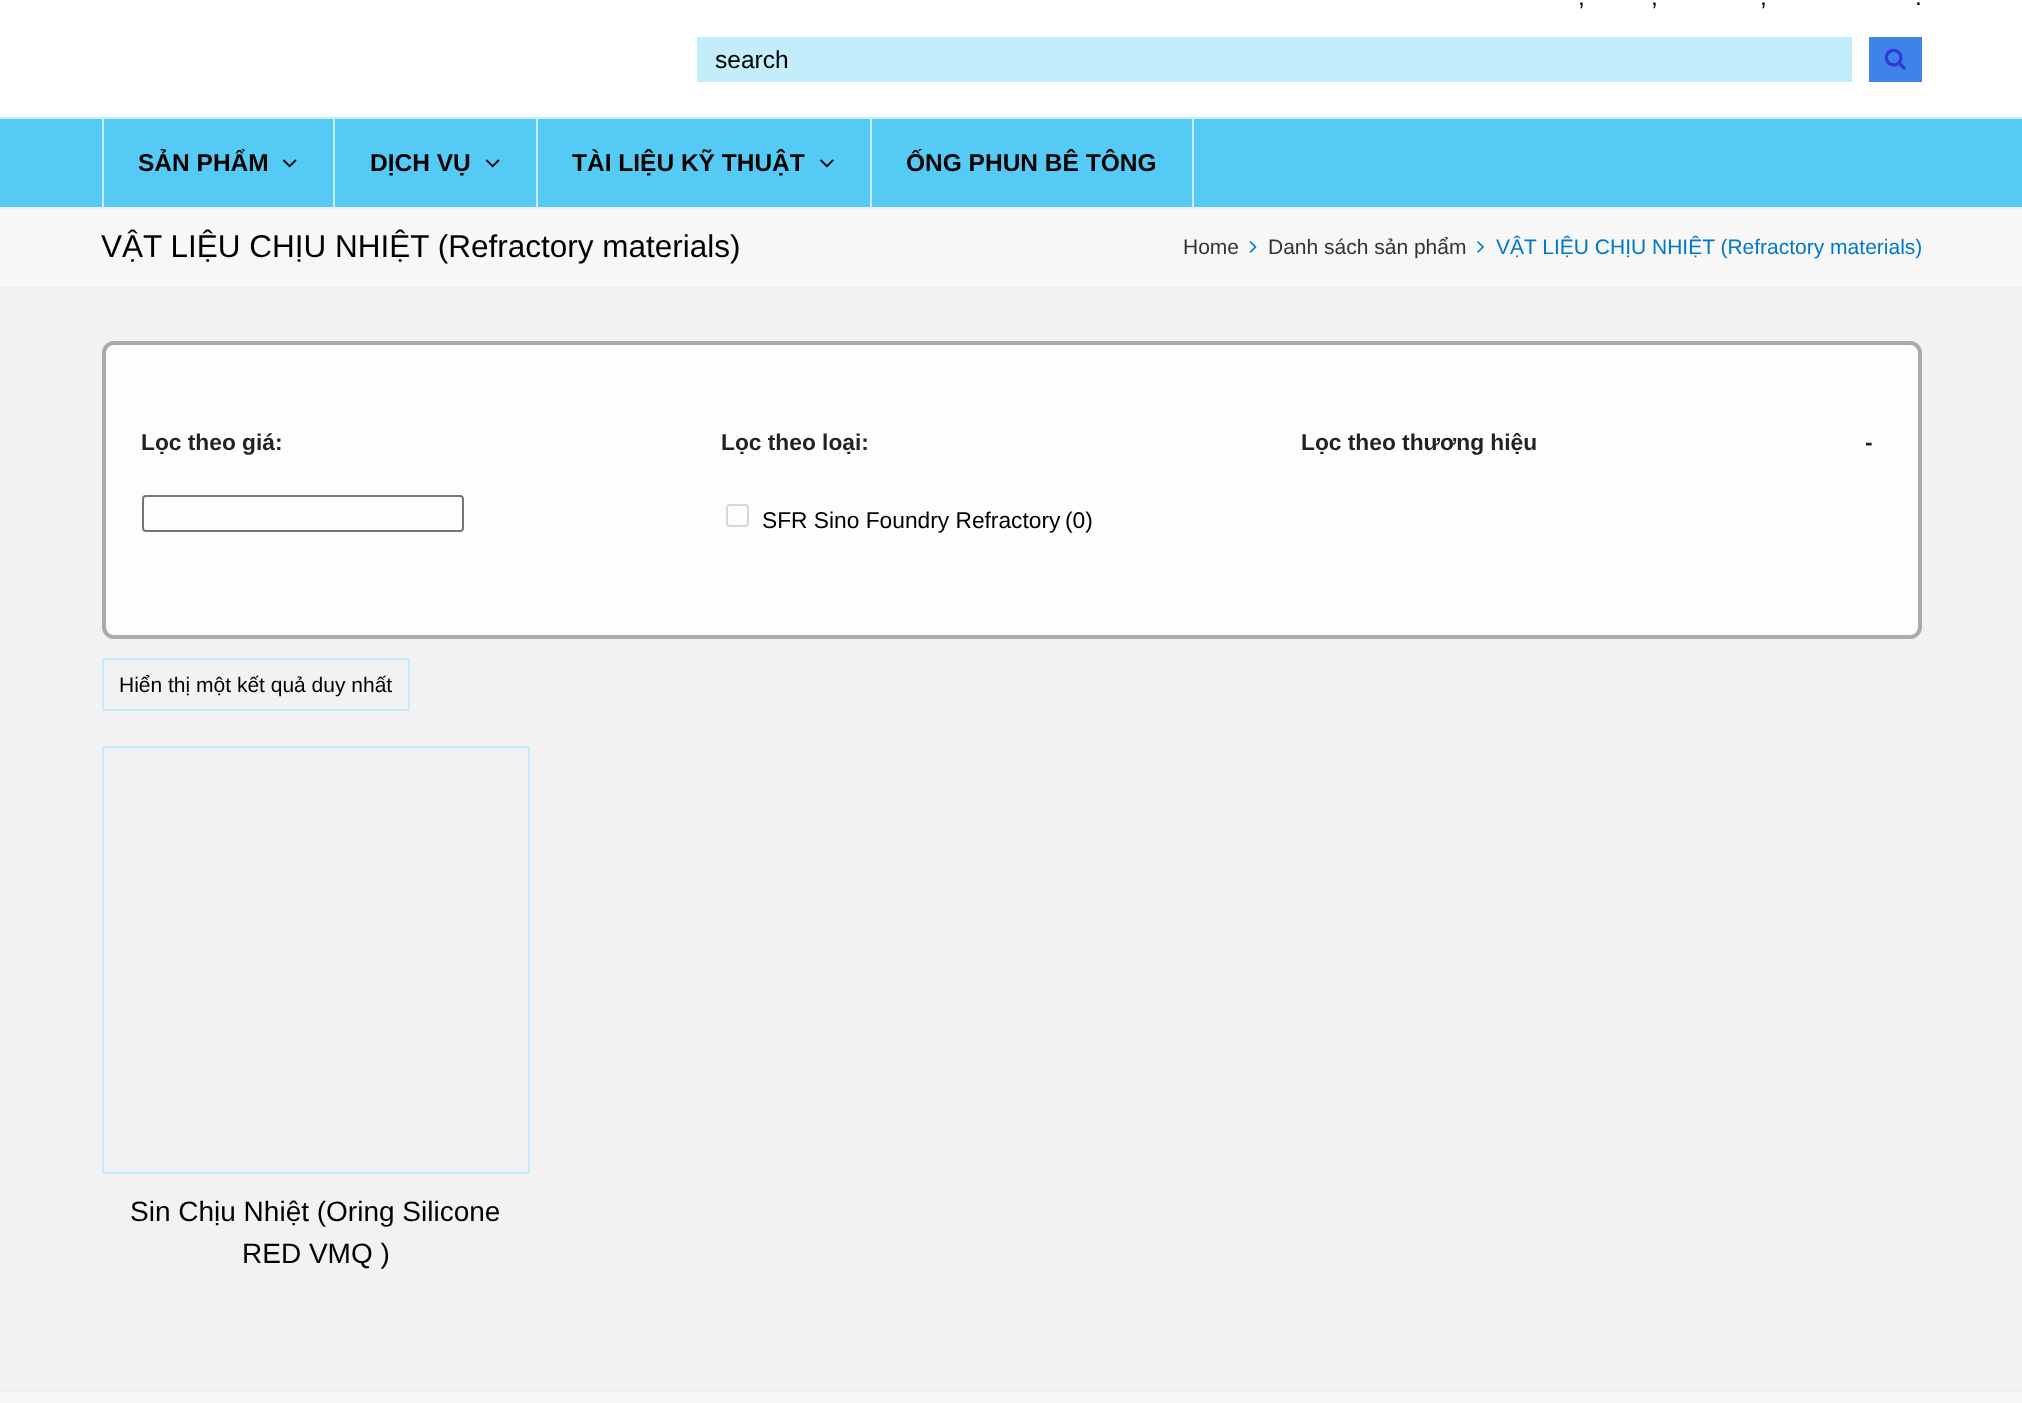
<svg xmlns="http://www.w3.org/2000/svg" xmlns:xlink="http://www.w3.org/1999/xlink" width="2022" height="1403" viewBox="0 0 2022 1403">
<style>
.cls-1{font:24.5px Liberation Sans;fill:#000000}
.cls-2{font:bold 24.5px Liberation Sans;fill:#000000}
.cls-3{font:31.5px Liberation Sans;fill:#000000}
.cls-4{font:21px Liberation Sans;fill:#333333}
.cls-5{font:21px Liberation Sans;fill:#0078ca}
.cls-6{font:bold 22.75px Liberation Sans;fill:#222222}
.cls-7{font:22.75px Liberation Sans;fill:#000000}
.cls-8{font:21px Liberation Sans;fill:#000000}
.cls-9{font:28px Liberation Sans;fill:#000000}
</style>
<rect width="100%" height="100%" fill="#f2f2f2"/>
<rect fill="#ffffff" x="0" y="0" width="2022" height="117"/>
<rect fill="#c4edfb" x="697" y="37" width="1155" height="45"/>
<rect fill="#4083e8" x="1869" y="37" width="53" height="45"/>
<image xlink:href="image0.png" x="1884" y="48" width="22" height="22"/>
<rect fill="#55caf5" x="0" y="119" width="2022" height="88"/>
<rect fill="#c4edfb" x="0" y="117" width="2022" height="2"/>
<rect fill="#c4edfb" x="102" y="119" width="2" height="88"/>
<rect fill="#c4edfb" x="333" y="119" width="2" height="88"/>
<image xlink:href="image1.png" x="282" y="159" width="15" height="9"/>
<rect fill="#c4edfb" x="536" y="119" width="2" height="88"/>
<image xlink:href="image1.png" x="485" y="159" width="15" height="9"/>
<rect fill="#c4edfb" x="870" y="119" width="2" height="88"/>
<image xlink:href="image2.png" x="820" y="159" width="14" height="9"/>
<rect fill="#c4edfb" x="1192" y="119" width="2" height="88"/>
<rect fill="#f7f7f7" x="0" y="209" width="2022" height="78"/>
<rect fill="#eeeeee" x="0" y="207" width="2022" height="2"/>
<rect fill="#eeeeee" x="0" y="287" width="2022" height="2"/>
<image xlink:href="image3.png" x="1249" y="241" width="8" height="12"/>
<image xlink:href="image4.png" x="1477" y="241" width="7" height="12"/>
<rect fill="#fdfdfd" stroke="#aaaaaa" stroke-width="4" x="104" y="343" width="1816" height="294" rx="10"/>
<rect fill="none" stroke="#767676" stroke-width="2" x="143" y="496" width="320" height="35" rx="3"/>
<rect fill="none" stroke="#d6d6d6" stroke-width="2" x="727" y="505" width="21" height="21" rx="3"/>
<rect fill="none" stroke="#c4edfb" stroke-width="2" x="103" y="659" width="306" height="51"/>
<rect fill="none" stroke="#c4edfb" stroke-width="2" x="103" y="747" width="426" height="426"/>
<rect fill="#f7f7f7" x="0" y="1392" width="2022" height="11"/>
<rect fill="#eeeeee" x="0" y="1390" width="2022" height="2"/>
<text class="cls-1" x="1578" y="5">,</text>
<text class="cls-1" x="1651" y="5">,</text>
<text class="cls-1" x="1760" y="5">,</text>
<text class="cls-1" x="1915" y="5">.</text>
<text class="cls-1" x="715" y="68">search</text>
<text class="cls-2" x="138" y="171">SẢN PHẨM</text>
<text class="cls-2" x="370" y="171">DỊCH VỤ</text>
<text class="cls-2" x="572" y="171">TÀI LIỆU KỸ THUẬT</text>
<text class="cls-2" x="906" y="171">ỐNG PHUN BÊ TÔNG</text>
<text class="cls-3" x="101" y="257">VẬT LIỆU CHỊU NHIỆT (Refractory materials)</text>
<text class="cls-4" x="1183" y="254">Home</text>
<text class="cls-4" x="1268" y="254">Danh sách sản phẩm</text>
<text class="cls-5" x="1496" y="254">VẬT LIỆU CHỊU NHIỆT (Refractory materials)</text>
<text class="cls-6" x="141" y="450">Lọc theo giá:</text>
<text class="cls-6" x="721" y="450">Lọc theo loại:</text>
<text class="cls-7" x="762" y="528">SFR Sino Foundry Refractory</text>
<text class="cls-7" x="1065" y="528">(0)</text>
<text class="cls-6" x="1301" y="450">Lọc theo thương hiệu</text>
<text class="cls-6" x="1865" y="450">-</text>
<text class="cls-8" x="119" y="692">Hiển thị một kết quả duy nhất</text>
<text class="cls-9" x="130" y="1221">Sin Chịu Nhiệt (Oring Silicone</text>
<text class="cls-9" x="242" y="1263">RED VMQ )</text>
</svg>
